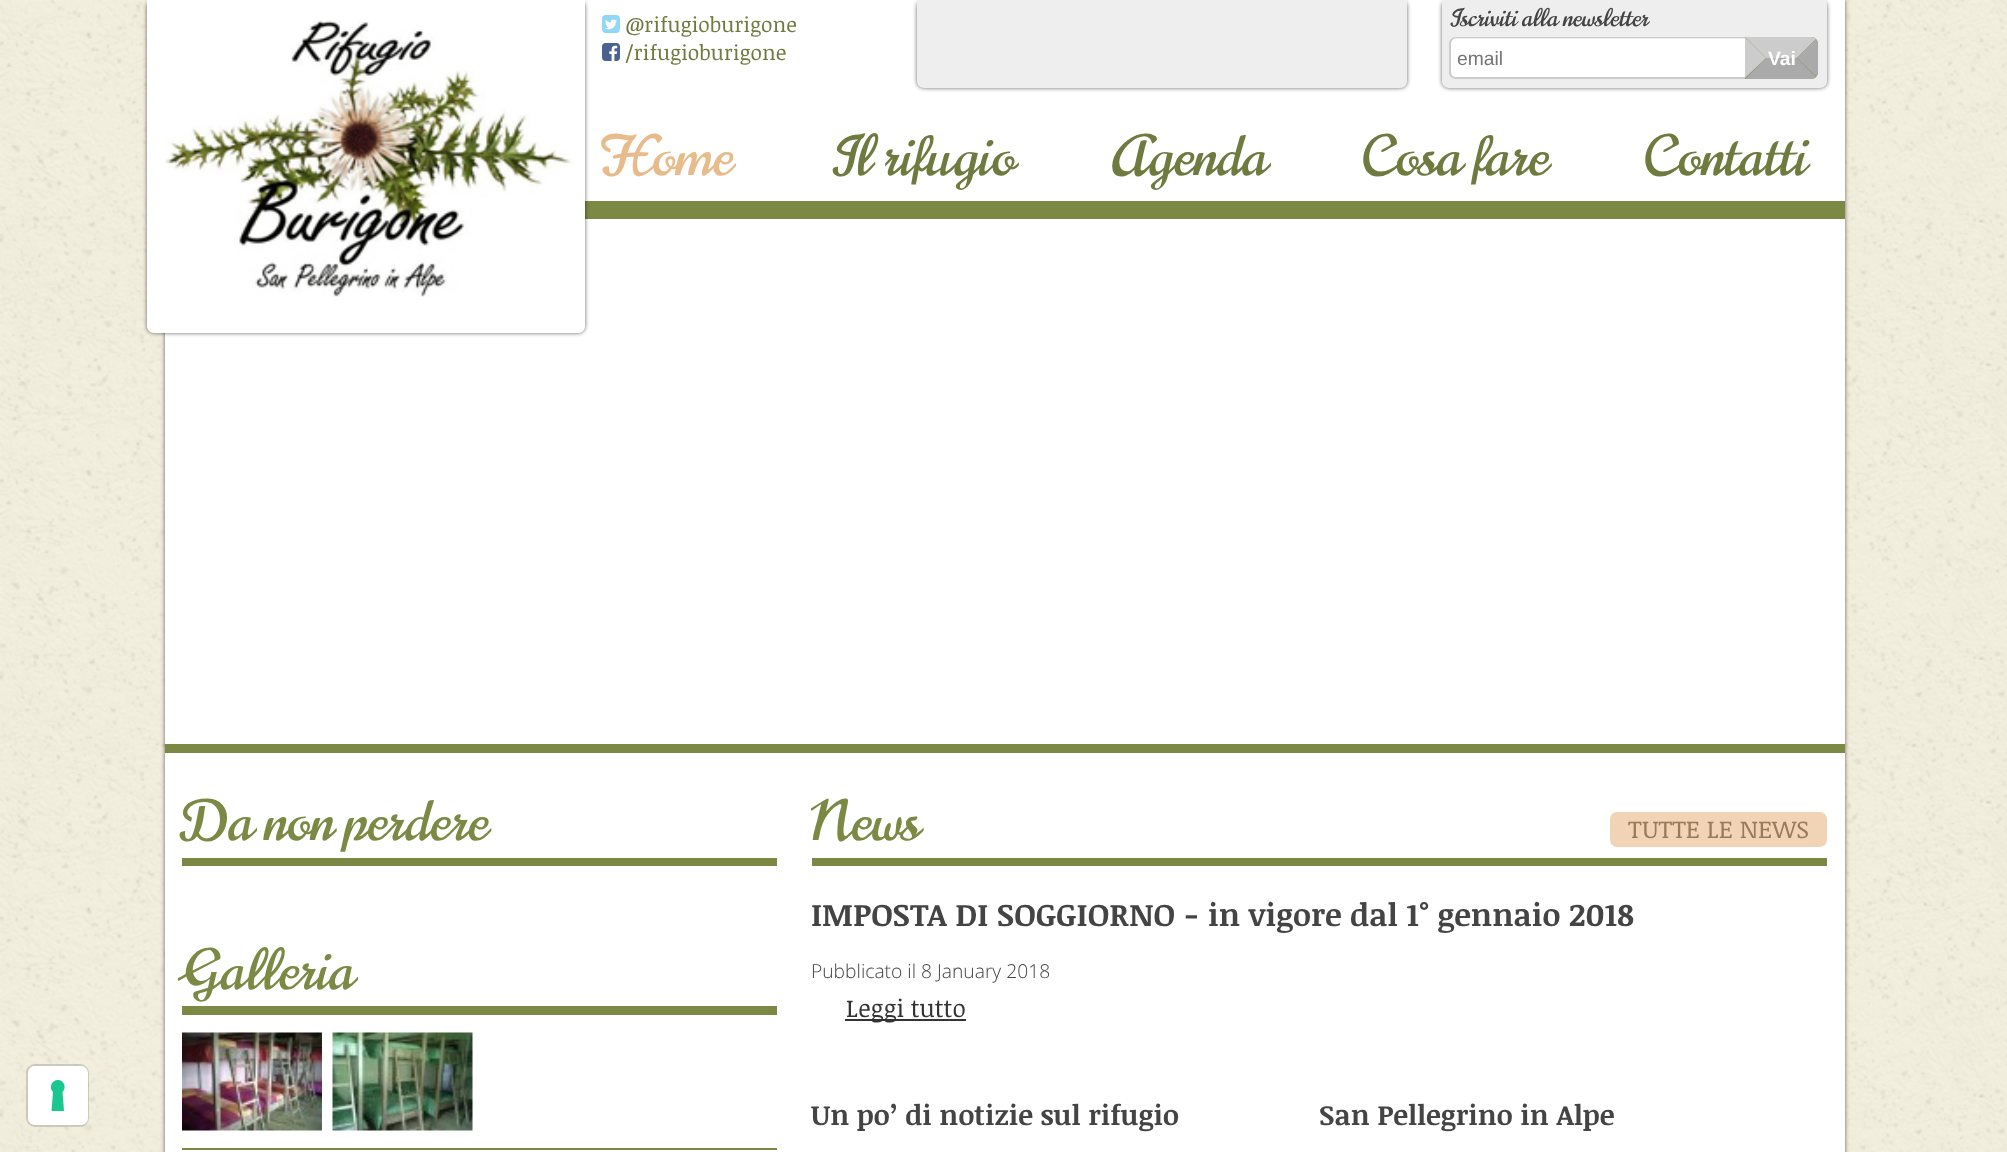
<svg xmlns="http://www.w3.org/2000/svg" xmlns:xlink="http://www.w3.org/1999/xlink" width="2007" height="1152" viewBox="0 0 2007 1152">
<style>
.cls-1{font:21px Noticia Text;fill:#6f7a3f}
.cls-2{font:24.5px Norican;fill:#444444}
.cls-3{font:19.25px Liberation Sans;fill:#757575}
.cls-4{font:bold 19.25px Liberation Sans;fill:#ffffff}
.cls-5{font:56px Norican;fill:#e8bb8a}
.cls-6{font:56px Norican;fill:#6f7a3f}
.cls-7{font:56px Norican;fill:#7c8944}
.cls-8{font:24.5px Noticia Text;fill:#997b5b}
.cls-9{font:bold 31.5px Noticia Text;fill:#444444}
.cls-10{font:300 19.25px Open Sans;fill:#444444}
.cls-11{font:24.5px Noticia Text;fill:#333333}
.cls-12{font:bold 28px Noticia Text;fill:#444444}
</style>
<defs>
<clipPath id="clip1"><rect x="1458" y="47" width="280" height="21"/></clipPath>
</defs>
<rect width="100%" height="100%" fill="#ffffff"/>
<image xlink:href="image0.png" x="0" y="0" width="2007" height="1152"/>
<rect fill="none" stroke="#000000" stroke-opacity="0.15" stroke-width="2" x="27" y="1065" width="61" height="61" rx="8"/>
<rect fill="#ffffff" x="28" y="1066" width="60" height="59" rx="7"/>
<path fill="#1cc691" fill-rule="evenodd" d="M58 1080C64 1080 67 1088 62.5 1092L64 1111H51.5L53 1092C48.5 1088 51.5 1080 58 1080Z"/>
<rect fill="#000000" fill-opacity="0.6" filter="blur(2px)" x="165" y="0" width="1680" height="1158"/>
<rect fill="#ffffff" x="165" y="0" width="1680" height="1152"/>
<rect fill="#7c8944" x="585" y="201" width="1260" height="18"/>
<rect fill="#000000" fill-opacity="0.6" filter="blur(2px)" x="147" y="0" width="438" height="333" rx="7"/>
<path fill="#ffffff" d="M147 0H585V326C585 330 582 333 578 333H154C150 333 147 330 147 326Z"/>
<image xlink:href="image1.png" x="165" y="20" width="409" height="277"/>
<image xlink:href="image2.png" x="602" y="15" width="18" height="18"/>
<image xlink:href="image3.png" x="602" y="43" width="18" height="18"/>
<rect fill="#000000" fill-opacity="0.6" filter="blur(2px)" x="917" y="0" width="490" height="88" rx="7"/>
<path fill="#eeeeee" d="M917 0H1407V81C1407 85 1404 88 1400 88H924C920 88 917 85 917 81Z"/>
<rect fill="#000000" fill-opacity="0.6" filter="blur(2px)" x="1442" y="0" width="385" height="88" rx="7"/>
<path fill="#eeeeee" d="M1442 0H1827V81C1827 85 1824 88 1820 88H1449C1445 88 1442 85 1442 81Z"/>
<path fill="#ffffff" d="M1456 39H1745V77H1456C1453 77 1451 75 1451 72V44C1451 41 1453 39 1456 39Z"/>
<path fill="#cccccc" fill-rule="evenodd" d="M1456 37H1745V79H1456C1452 79 1449 76 1449 72V44C1449 40 1452 37 1456 37ZM1456 38H1745V77H1456C1453 77 1451 75 1451 72V44C1451 41 1453 38 1456 38Z"/>
<path fill="#7c8944" d="M1745 37H1811C1815 37 1818 40 1818 44V72C1818 76 1815 79 1811 79H1745Z"/>
<path fill="#cccccc" d="M1745 37L1766 58H1797L1816 39C1815 38 1813 37 1811 37Z"/>
<path fill="#aaaaaa" d="M1816 76.5C1817.5 75.5 1818 74 1818 72V44C1818 42 1817 40 1816 39L1797 58Z"/>
<path fill="#aaaaaa" d="M1745 79L1766 58H1797L1816 77L1813 79Z"/>
<path fill="#cccccc" d="M1745 37V78L1766 58Z"/>
<rect fill="#7c8944" x="165" y="744" width="1680" height="9"/>
<rect fill="#7c8944" x="182" y="858" width="595" height="8"/>
<rect fill="#7c8944" x="182" y="1006" width="595" height="9"/>
<rect fill="#7c8944" x="182" y="1148" width="595" height="2"/>
<image xlink:href="image4.png" x="182" y="1032" width="140" height="99"/>
<image xlink:href="image5.png" x="332" y="1032" width="141" height="99"/>
<rect fill="#7c8944" x="812" y="858" width="1015" height="8"/>
<rect fill="#f0d4b5" x="1610" y="812" width="217" height="35" rx="7"/>
<rect fill="#333333" x="845" y="1019" width="121" height="2"/>
<text class="cls-1"><tspan x="625" y="32">@rifugioburigone</tspan><tspan x="625" y="60">/rifugioburigone</tspan></text>
<text class="cls-2" x="1448" y="26">Iscriviti alla newsletter</text>
<g clip-path="url(#clip1)">
<text class="cls-3" x="1457" y="65">email</text>
</g>
<text class="cls-4" x="1768" y="65">Vai</text>
<text class="cls-5" x="601" y="175">Home</text>
<text class="cls-6" x="827" y="175">Il rifugio</text>
<text class="cls-6" x="1110" y="175">Agenda</text>
<text class="cls-6" x="1361" y="175">Cosa fare</text>
<text class="cls-6" x="1643" y="175">Contatti</text>
<text class="cls-7" x="181" y="840">Da non perdere</text>
<text class="cls-7" x="181" y="989">Galleria</text>
<text class="cls-7" x="811" y="840">News</text>
<text class="cls-8" x="1628" y="838">TUTTE LE NEWS</text>
<text class="cls-9" x="811" y="926">IMPOSTA DI SOGGIORNO - in vigore dal 1° gennaio 2018</text>
<text class="cls-10" x="811" y="978">Pubblicato il 8 January 2018</text>
<text class="cls-11" x="846" y="1017">Leggi tutto</text>
<text class="cls-12" x="811" y="1125">Un po’ di notizie sul rifugio</text>
<text class="cls-12" x="1319" y="1125">San Pellegrino in Alpe</text>
</svg>
